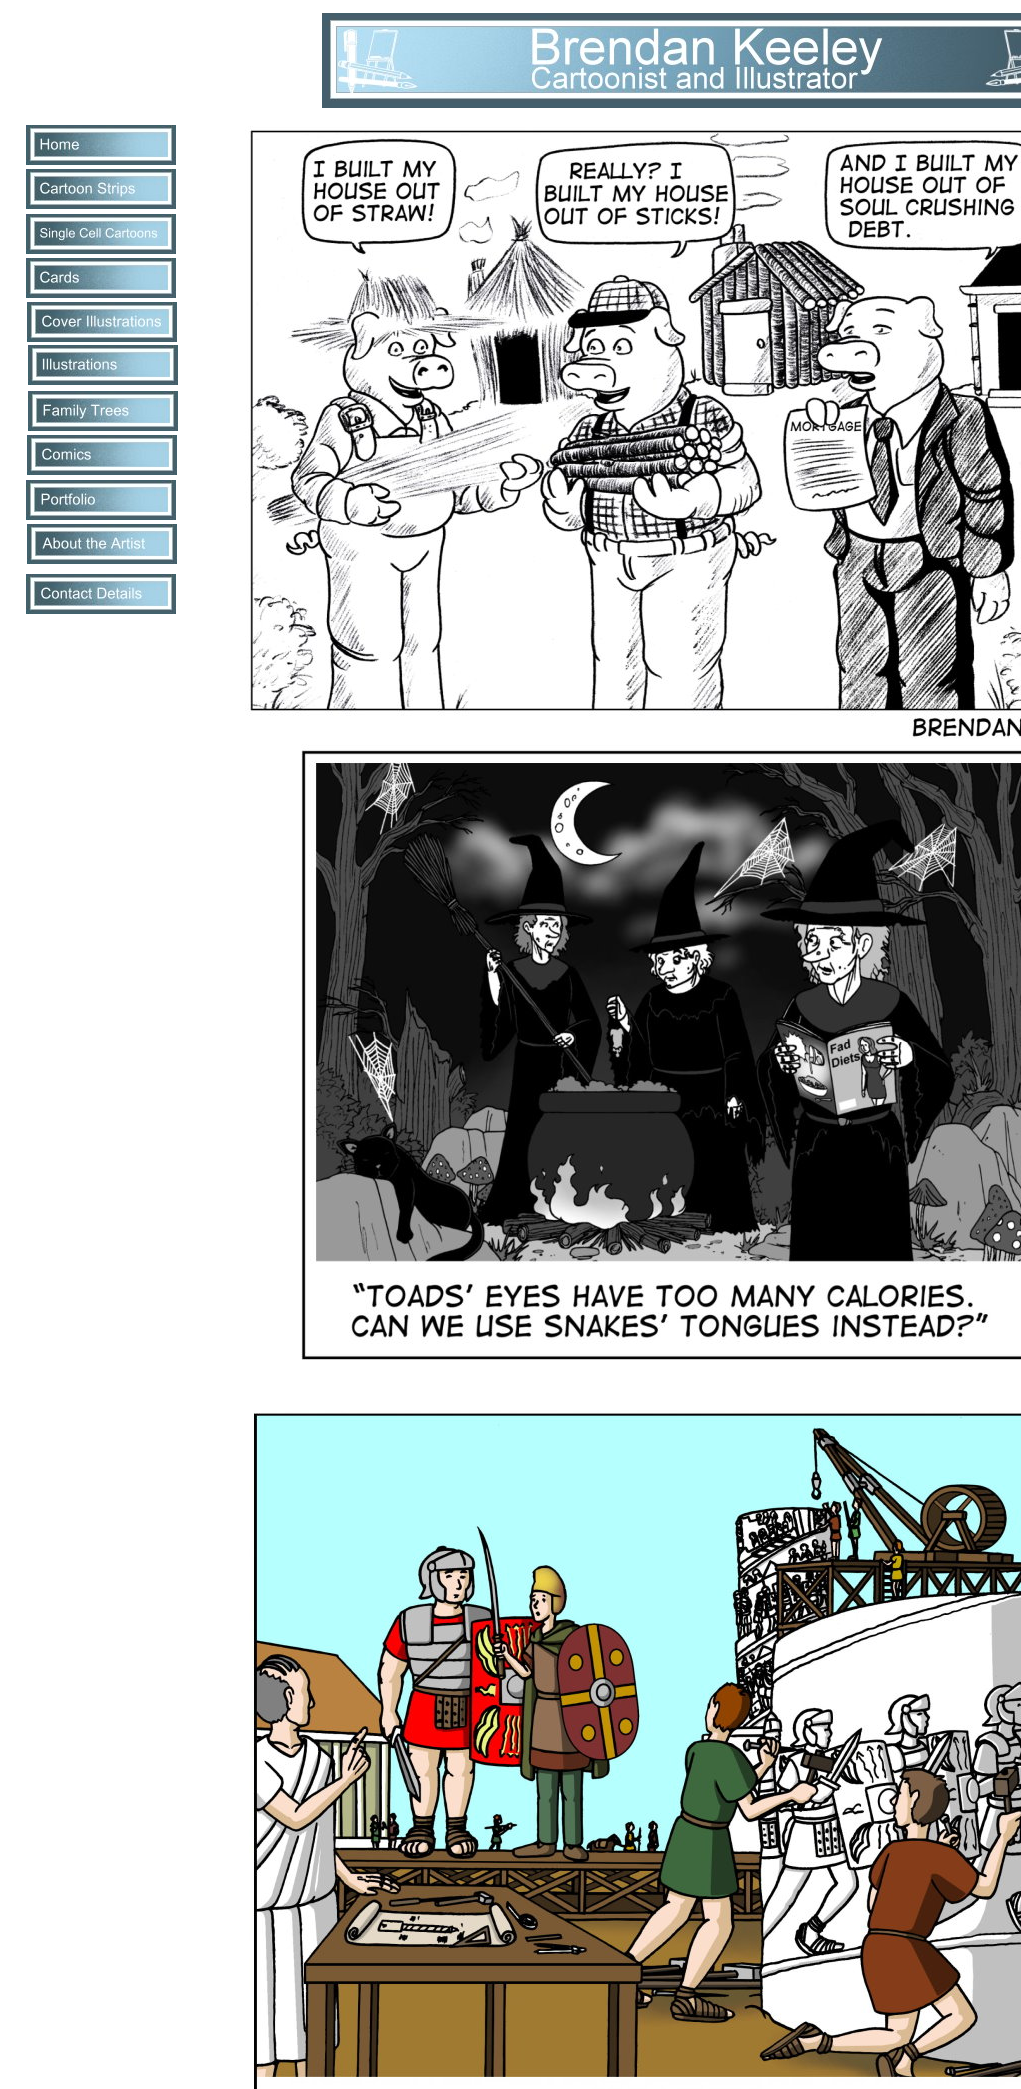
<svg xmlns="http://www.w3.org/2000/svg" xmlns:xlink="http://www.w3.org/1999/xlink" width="1021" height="2089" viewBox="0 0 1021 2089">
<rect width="100%" height="100%" fill="#ffffff"/>
<image xlink:href="image0.png" x="322" y="13" width="699" height="95"/>
<image xlink:href="image1.png" x="26" y="125" width="150" height="40"/>
<image xlink:href="image2.png" x="245" y="126" width="776" height="613"/>
<image xlink:href="image3.png" x="26" y="169" width="150" height="40"/>
<image xlink:href="image4.png" x="26" y="214" width="150" height="40"/>
<image xlink:href="image5.png" x="26" y="258" width="150" height="40"/>
<image xlink:href="image6.png" x="27" y="302" width="150" height="40"/>
<image xlink:href="image7.png" x="28" y="345" width="150" height="40"/>
<image xlink:href="image8.png" x="28" y="391" width="150" height="40"/>
<image xlink:href="image9.png" x="27" y="435" width="150" height="40"/>
<image xlink:href="image10.png" x="26" y="480" width="150" height="40"/>
<image xlink:href="image11.png" x="27" y="524" width="150" height="40"/>
<image xlink:href="image12.png" x="26" y="574" width="150" height="40"/>
<image xlink:href="image13.png" x="301" y="744" width="720" height="616"/>
<image xlink:href="image14.png" x="249" y="1410" width="772" height="679"/>
</svg>
